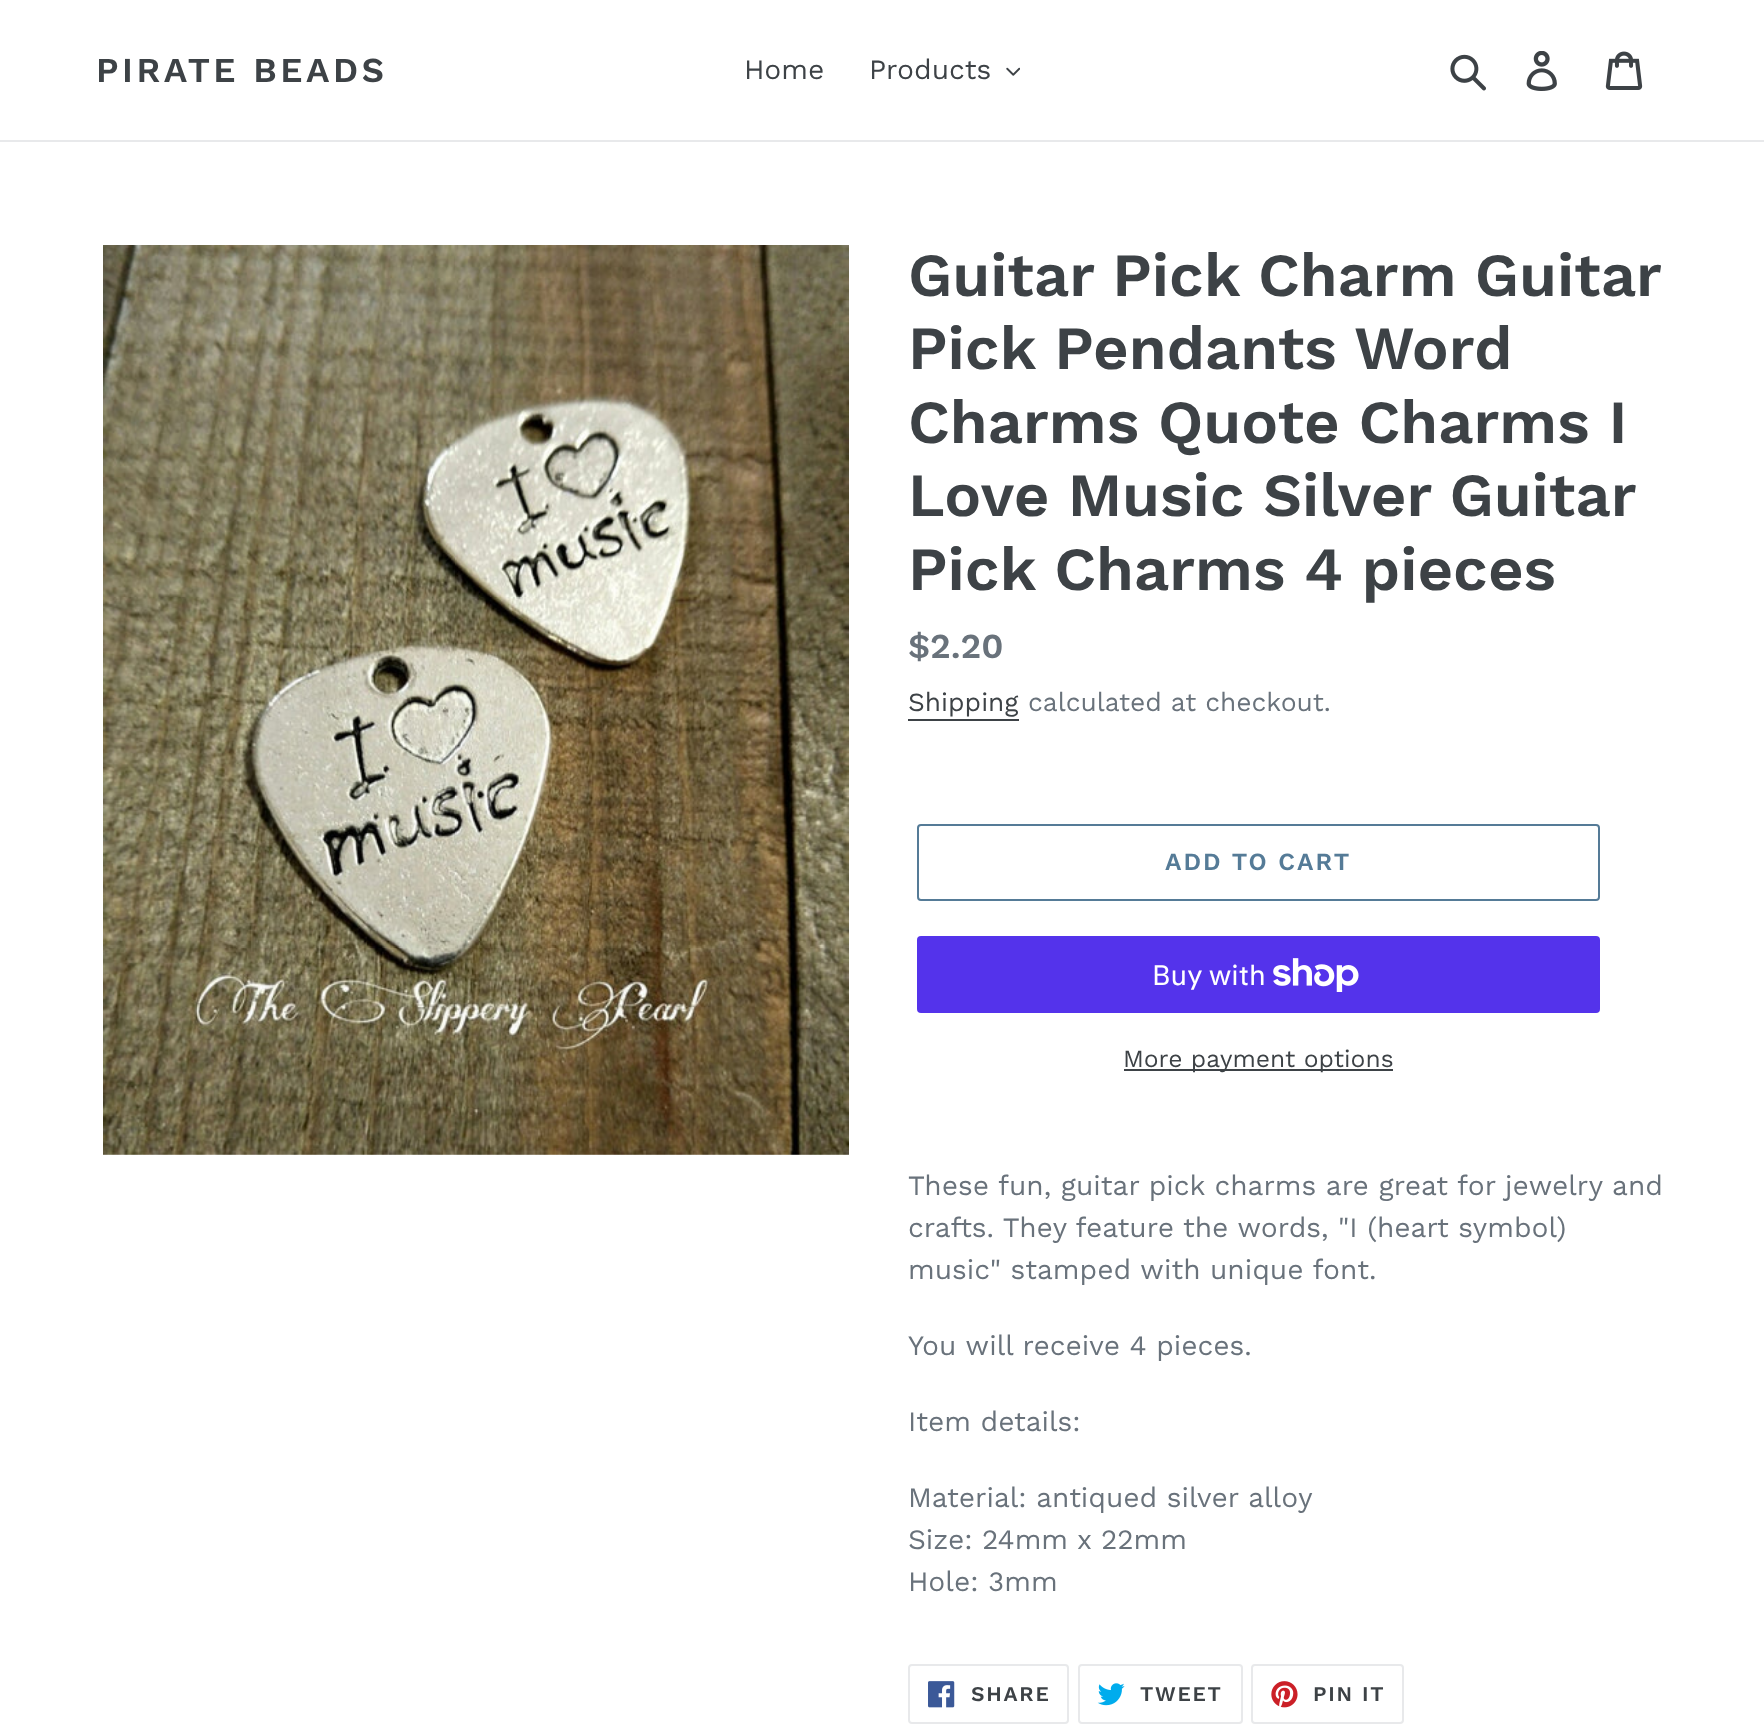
<svg xmlns="http://www.w3.org/2000/svg" xmlns:xlink="http://www.w3.org/1999/xlink" width="1764" height="1725" viewBox="0 0 1764 1725">
<style>
.cls-1{font:600 35px Work Sans;letter-spacing:3.5px;fill:#3d4246}
.cls-2{font:28px Work Sans;fill:#3d4246}
.cls-3{font:600 61.25px Work Sans;fill:#3d4246}
.cls-4{font:600 35px Work Sans;fill:#69727b}
.cls-5{font:26.25px Work Sans;fill:#3d4246}
.cls-6{font:26.25px Work Sans;fill:#69727b}
.cls-7{font:600 24.5px Work Sans;letter-spacing:2px;fill:#557b97}
.cls-8{font:28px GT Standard;fill:#ffffff}
.cls-9{font:24.5px Work Sans;fill:#3d4246}
.cls-10{font:28px Work Sans;fill:#69727b}
.cls-11{font:600 21px Work Sans;letter-spacing:1.75px;fill:#3d4246}
</style>
<rect width="100%" height="100%" fill="#ffffff"/>
<rect fill="#e8e9eb" x="0" y="140" width="1764" height="2"/>
<image xlink:href="image0.png" x="1006" y="67" width="14" height="9"/>
<image xlink:href="image1.png" x="1450" y="54" width="36" height="37"/>
<image xlink:href="image2.png" x="1526" y="51" width="31" height="40"/>
<image xlink:href="image3.png" x="1605" y="51" width="38" height="39"/>
<image xlink:href="image4.png" x="103" y="245" width="746" height="910"/>
<rect fill="#3d4246" x="908" y="719" width="111" height="2"/>
<rect fill="none" stroke="#557b97" stroke-width="2" x="918" y="825" width="681" height="75" rx="3"/>
<rect fill="#5433eb" x="917" y="936" width="683" height="77" rx="4"/>
<image xlink:href="image5.png" x="1273" y="958" width="86" height="34"/>
<rect fill="#3d4246" x="1124" y="1069" width="269" height="2"/>
<rect fill="none" stroke="#e8e9eb" stroke-width="2" x="909" y="1665" width="159" height="58" rx="3"/>
<image xlink:href="image6.png" x="928" y="1681" width="27" height="27"/>
<rect fill="none" stroke="#e8e9eb" stroke-width="2" x="1079" y="1665" width="163" height="58" rx="3"/>
<image xlink:href="image7.png" x="1097" y="1683" width="28" height="23"/>
<rect fill="none" stroke="#e8e9eb" stroke-width="2" x="1252" y="1665" width="151" height="58" rx="3"/>
<image xlink:href="image8.png" x="1271" y="1681" width="27" height="27"/>
<text class="cls-1" x="96" y="82">PIRATE BEADS</text>
<text class="cls-2" x="744" y="79">Home</text>
<text class="cls-2" x="869" y="79">Products</text>
<text class="cls-3"><tspan x="908" y="296" word-spacing="-0.5">Guitar Pick Charm Guitar</tspan><tspan x="908" y="369">Pick Pendants Word</tspan><tspan x="908" y="443">Charms Quote Charms I</tspan><tspan x="908" y="516" word-spacing="-0.5">Love Music Silver Guitar</tspan><tspan x="908" y="590">Pick Charms 4 pieces</tspan></text>
<text class="cls-4" x="908" y="658">$2.20</text>
<text class="cls-5" x="908" y="711">Shipping</text>
<text class="cls-6" x="1028" y="711">calculated at checkout.</text>
<text class="cls-7" x="1165" y="870">ADD TO CART</text>
<text class="cls-8" x="1152" y="985">Buy with</text>
<text class="cls-9" x="1123" y="1067">More payment options</text>
<text class="cls-10"><tspan x="908" y="1195">These fun, guitar pick charms are great for jewelry and</tspan><tspan x="908" y="1237">crafts. They feature the words, "I (heart symbol)</tspan><tspan x="908" y="1279">music" stamped with unique font.</tspan></text>
<text class="cls-10" x="908" y="1355">You will receive 4 pieces.</text>
<text class="cls-10" x="908" y="1431">Item details:</text>
<text class="cls-10"><tspan x="908" y="1507">Material: antiqued silver alloy</tspan><tspan x="908" y="1549">Size: 24mm x 22mm</tspan><tspan x="908" y="1591">Hole: 3mm</tspan></text>
<text class="cls-11" x="971" y="1701">SHARE</text>
<text class="cls-11" x="1140" y="1701">TWEET</text>
<text class="cls-11" x="1313" y="1701">PIN IT</text>
</svg>
